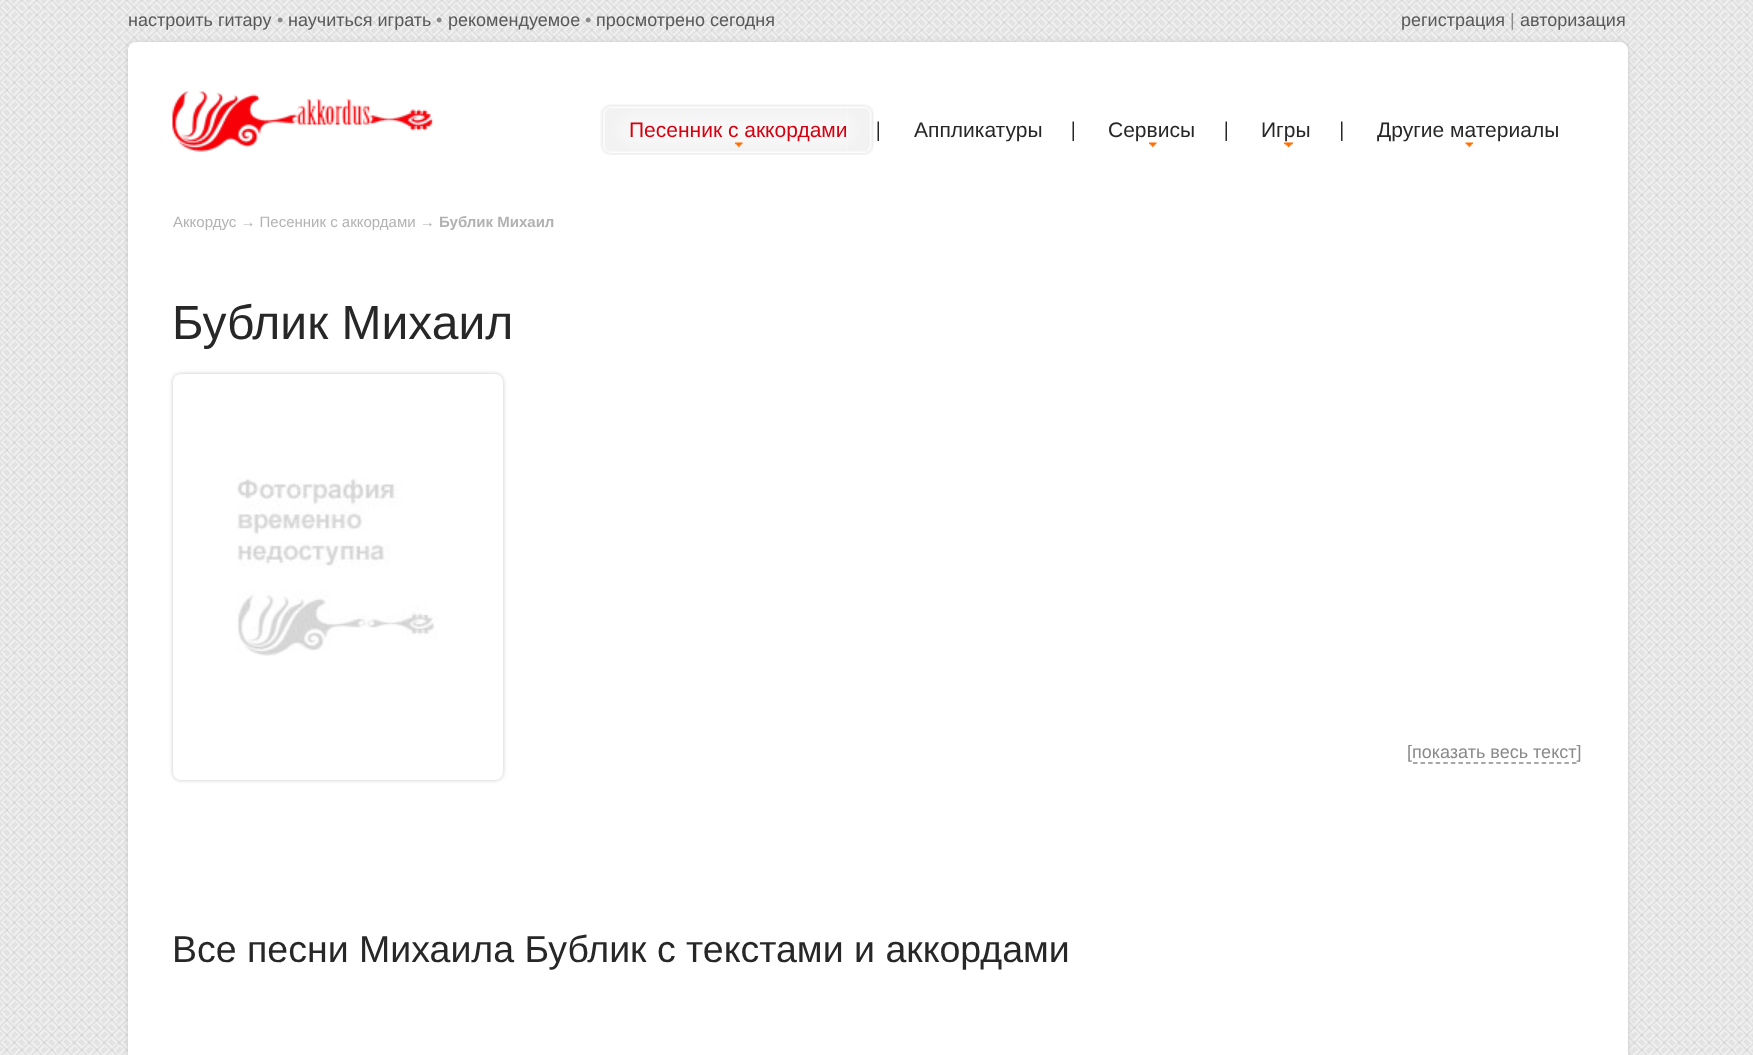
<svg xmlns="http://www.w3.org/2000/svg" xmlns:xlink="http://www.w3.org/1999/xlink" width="1753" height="1055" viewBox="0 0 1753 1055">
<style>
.cls-1{font:18px Liberation Sans;fill:#595959}
.cls-2{font:18px Liberation Sans;fill:#8a8a8a}
.cls-3{font:21px Liberation Sans;fill:#d50110}
.cls-4{font:21px Liberation Sans;fill:#272727}
.cls-5{font:15px Liberation Sans;fill:#b2b2b2}
.cls-6{font:bold 15px Liberation Sans;fill:#b2b2b2}
.cls-7{font:48px Liberation Sans;fill:#272727}
.cls-8{font:37.5px Liberation Sans;fill:#272727}
</style>
<rect width="100%" height="100%" fill="#ffffff"/>
<image xlink:href="image0.png" x="0" y="0" width="1753" height="1055"/>
<rect fill="#c7c7c7" filter="blur(2px)" x="128" y="42" width="1500" height="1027" rx="8"/>
<rect fill="#ffffff" stroke="#ffffff" stroke-width="2" x="129" y="43" width="1498" height="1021" rx="7"/>
<image xlink:href="image1.png" x="172" y="91" width="261" height="61"/>
<image xlink:href="image2.png" x="600" y="104" width="30" height="51"/>
<image xlink:href="image3.png" x="847" y="104" width="27" height="51"/>
<image xlink:href="image4.png" x="630" y="104" width="218" height="51"/>
<image xlink:href="image5.png" x="735" y="142" width="8" height="5"/>
<image xlink:href="image6.png" x="877" y="121" width="2" height="20"/>
<image xlink:href="image6.png" x="1072" y="121" width="2" height="20"/>
<image xlink:href="image7.png" x="1149" y="142" width="8" height="5"/>
<image xlink:href="image6.png" x="1225" y="121" width="2" height="20"/>
<image xlink:href="image8.png" x="1284" y="142" width="9" height="5"/>
<image xlink:href="image9.png" x="1341" y="121" width="2" height="20"/>
<image xlink:href="image10.png" x="1465" y="142" width="8" height="5"/>
<rect fill="#c7c7c7" filter="blur(2px)" x="173" y="374" width="330" height="406" rx="8"/>
<rect fill="#ffffff" stroke="#ffffff" stroke-width="2" x="174" y="375" width="328" height="404" rx="7"/>
<image xlink:href="image11.png" x="236" y="478" width="202" height="178"/>
<path fill="none" stroke="#8a8a8a" stroke-width="1.5" stroke-dasharray="4.5 3.07" d="M1413 763H1576.5"/>
<text class="cls-1" x="128" y="26">настроить гитару</text>
<text class="cls-2" x="277" y="26">•</text>
<text class="cls-1" x="288" y="26">научиться играть</text>
<text class="cls-2" x="436" y="26">•</text>
<text class="cls-1" x="448" y="26">рекомендуемое</text>
<text class="cls-2" x="585" y="26">•</text>
<text class="cls-1" x="596" y="26">просмотрено сегодня</text>
<text class="cls-1" x="1401" y="26">регистрация</text>
<text class="cls-2" x="1510" y="26">|</text>
<text class="cls-1" x="1520" y="26">авторизация</text>
<text class="cls-3" x="629" y="137">Песенник с аккордами</text>
<text class="cls-4" x="914" y="137">Аппликатуры</text>
<text class="cls-4" x="1108" y="137">Сервисы</text>
<text class="cls-4" x="1261" y="137">Игры</text>
<text class="cls-4" x="1377" y="137">Другие материалы</text>
<text class="cls-5" x="173" y="227">Аккордус → Песенник с аккордами →</text>
<text class="cls-6" x="439" y="227">Бублик Михаил</text>
<text class="cls-7" x="172" y="339">Бублик Михаил</text>
<text class="cls-2" x="1407" y="758">[показать весь текст]</text>
<text class="cls-8" x="172" y="962">Все песни Михаила Бублик с текстами и аккордами</text>
</svg>
